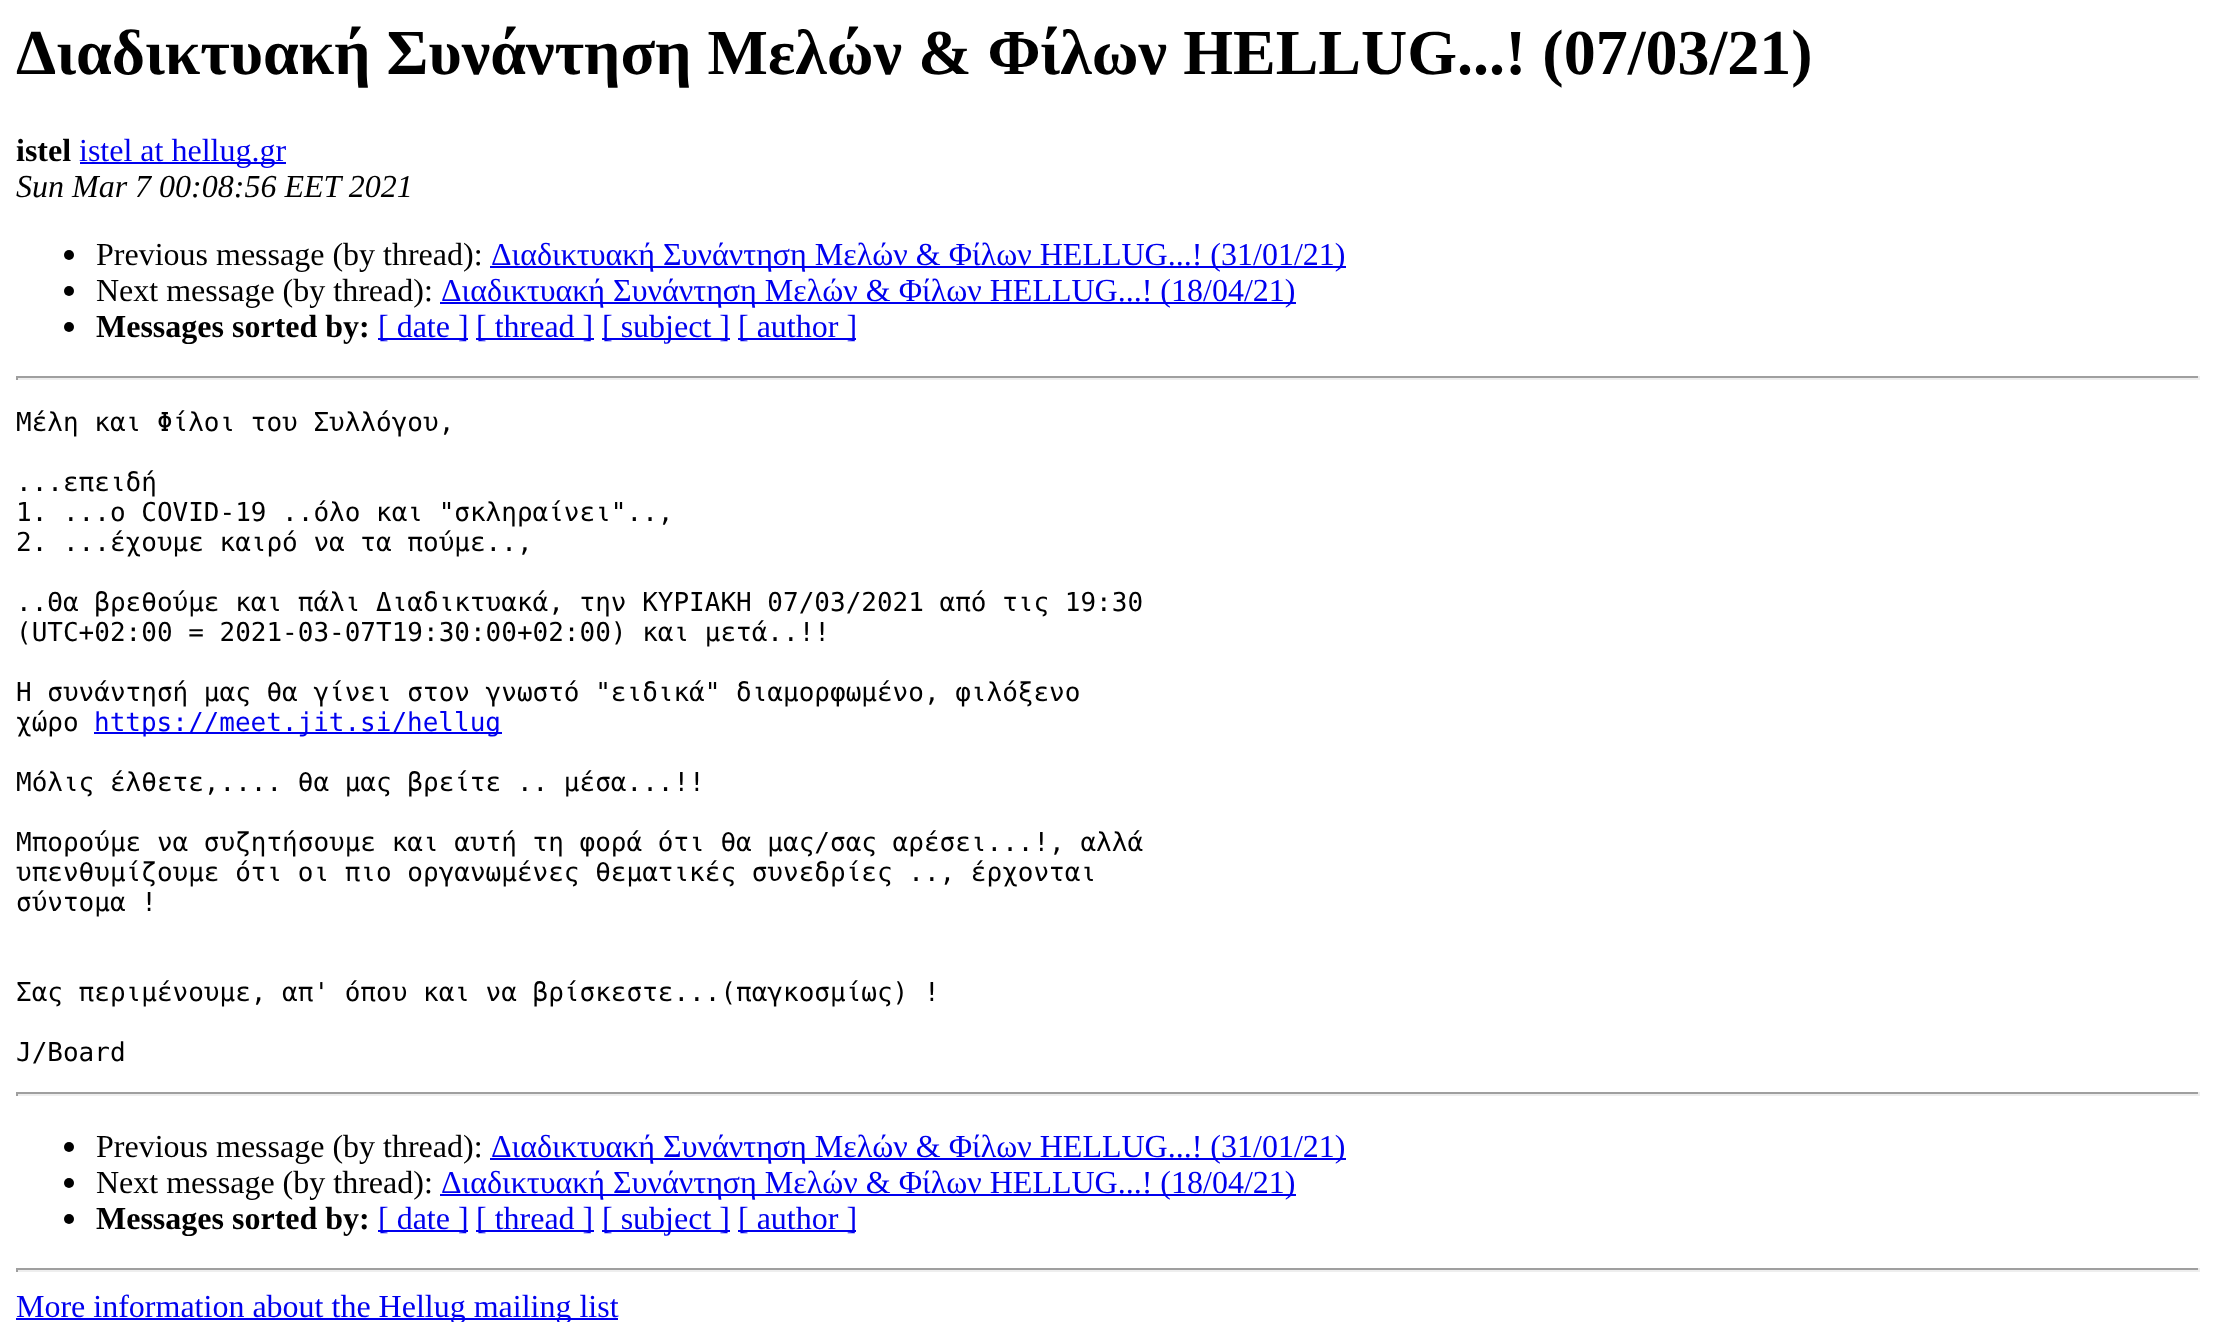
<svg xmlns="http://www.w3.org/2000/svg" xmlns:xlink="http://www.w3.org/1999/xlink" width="2216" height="1322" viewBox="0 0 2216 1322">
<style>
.cls-1{font:bold 64px Liberation Serif;fill:#000000}
.cls-2{font:bold 32px Liberation Serif;fill:#000000}
.cls-3{font:32px Liberation Serif;fill:#0000ee}
.cls-4{font:italic 32px Liberation Serif;fill:#000000}
.cls-5{font:32px Liberation Serif;fill:#000000}
.cls-6{font:26px DejaVu Sans Mono;fill:#000000}
.cls-7{font:26px DejaVu Sans Mono;fill:#0000ee}
</style>
<rect width="100%" height="100%" fill="#ffffff"/>
<rect fill="#0000ee" x="80" y="162" width="206" height="2"/>
<circle fill="#000000" cx="69" cy="255" r="5"/>
<rect fill="#0000ee" x="490" y="266" width="856" height="2"/>
<circle fill="#000000" cx="69" cy="291" r="5"/>
<rect fill="#0000ee" x="440" y="302" width="856" height="2"/>
<circle fill="#000000" cx="69" cy="327" r="5"/>
<rect fill="#0000ee" x="378" y="338" width="90" height="2"/>
<rect fill="#0000ee" x="476" y="338" width="118" height="2"/>
<rect fill="#0000ee" x="602" y="338" width="128" height="2"/>
<rect fill="#0000ee" x="738" y="338" width="118" height="2"/>
<rect fill="#9f9f9f" x="16" y="376" width="2184" height="2"/>
<rect fill="#eeeeee" x="2198" y="376" width="2" height="4"/>
<rect fill="#eeeeee" x="16" y="378" width="2184" height="2"/>
<rect fill="#9f9f9f" x="16" y="376" width="2" height="4"/>
<rect fill="#0000ee" x="94" y="732" width="408" height="2"/>
<rect fill="#9f9f9f" x="16" y="1092" width="2184" height="2"/>
<rect fill="#eeeeee" x="2198" y="1092" width="2" height="4"/>
<rect fill="#eeeeee" x="16" y="1094" width="2184" height="2"/>
<rect fill="#9f9f9f" x="16" y="1092" width="2" height="4"/>
<circle fill="#000000" cx="69" cy="1147" r="5"/>
<rect fill="#0000ee" x="490" y="1158" width="856" height="2"/>
<circle fill="#000000" cx="69" cy="1183" r="5"/>
<rect fill="#0000ee" x="440" y="1194" width="856" height="2"/>
<circle fill="#000000" cx="69" cy="1219" r="5"/>
<rect fill="#0000ee" x="378" y="1230" width="90" height="2"/>
<rect fill="#0000ee" x="476" y="1230" width="118" height="2"/>
<rect fill="#0000ee" x="602" y="1230" width="128" height="2"/>
<rect fill="#0000ee" x="738" y="1230" width="118" height="2"/>
<rect fill="#9f9f9f" x="16" y="1268" width="2184" height="2"/>
<rect fill="#eeeeee" x="2198" y="1268" width="2" height="4"/>
<rect fill="#eeeeee" x="16" y="1270" width="2184" height="2"/>
<rect fill="#9f9f9f" x="16" y="1268" width="2" height="4"/>
<rect fill="#0000ee" x="16" y="1318" width="602" height="2"/>
<text class="cls-1" x="16" y="74">Διαδικτυακή Συνάντηση Μελών &amp; Φίλων HELLUG...! (07/03/21)</text>
<text class="cls-2" x="16" y="161">istel</text>
<text class="cls-3" x="79" y="161">istel at hellug.gr</text>
<text class="cls-4" x="16" y="197">Sun Mar 7 00:08:56 EET 2021</text>
<text class="cls-5" x="96" y="265">Previous message (by thread):</text>
<text class="cls-3" x="491" y="265">Διαδικτυακή Συνάντηση Μελών &amp; Φίλων HELLUG...! (31/01/21)</text>
<text class="cls-5" x="96" y="301">Next message (by thread):</text>
<text class="cls-3" x="441" y="301">Διαδικτυακή Συνάντηση Μελών &amp; Φίλων HELLUG...! (18/04/21)</text>
<text class="cls-2" x="96" y="337">Messages sorted by:</text>
<text class="cls-3" x="378" y="337">[ date ]</text>
<text class="cls-3" x="476" y="337">[ thread ]</text>
<text class="cls-3" x="602" y="337">[ subject ]</text>
<text class="cls-3" x="738" y="337">[ author ]</text>
<text class="cls-6" x="16" y="431">Μέλη και Φίλοι του Συλλόγου,</text>
<text class="cls-6"><tspan x="16" y="491">...επειδή</tspan><tspan x="16" y="521">1. ...ο COVID-19 ..όλο και "σκληραίνει"..,</tspan><tspan x="16" y="551">2. ...έχουμε καιρό να τα πούμε..,</tspan></text>
<text class="cls-6"><tspan x="16" y="611">..Θα βρεθούμε και πάλι Διαδικτυακά, την ΚΥΡΙΑΚΗ 07/03/2021 από τις 19:30</tspan><tspan x="16" y="641">(UTC+02:00 = 2021-03-07T19:30:00+02:00) και μετά..!!</tspan></text>
<text class="cls-6"><tspan x="16" y="701">Η συνάντησή μας θα γίνει στον γνωστό "ειδικά" διαμορφωμένο, φιλόξενο</tspan><tspan x="16" y="731">χώρο</tspan></text>
<text class="cls-7" x="94" y="731">https://meet.jit.si/hellug</text>
<text class="cls-6" x="16" y="791">Μόλις έλθετε,.... θα μας βρείτε .. μέσα...!!</text>
<text class="cls-6"><tspan x="16" y="851">Μπορούμε να συζητήσουμε και αυτή τη φορά ότι θα μας/σας αρέσει...!, αλλά</tspan><tspan x="16" y="881">υπενθυμίζουμε ότι οι πιο οργανωμένες θεματικές συνεδρίες .., έρχονται</tspan><tspan x="16" y="911">σύντομα !</tspan></text>
<text class="cls-6" x="16" y="1001">Σας περιμένουμε, απ' όπου και να βρίσκεστε...(παγκοσμίως) !</text>
<text class="cls-6" x="16" y="1061">J/Board</text>
<text class="cls-5" x="96" y="1157">Previous message (by thread):</text>
<text class="cls-3" x="491" y="1157">Διαδικτυακή Συνάντηση Μελών &amp; Φίλων HELLUG...! (31/01/21)</text>
<text class="cls-5" x="96" y="1193">Next message (by thread):</text>
<text class="cls-3" x="441" y="1193">Διαδικτυακή Συνάντηση Μελών &amp; Φίλων HELLUG...! (18/04/21)</text>
<text class="cls-2" x="96" y="1229">Messages sorted by:</text>
<text class="cls-3" x="378" y="1229">[ date ]</text>
<text class="cls-3" x="476" y="1229">[ thread ]</text>
<text class="cls-3" x="602" y="1229">[ subject ]</text>
<text class="cls-3" x="738" y="1229">[ author ]</text>
<text class="cls-3" x="16" y="1317">More information about the Hellug mailing list</text>
</svg>
